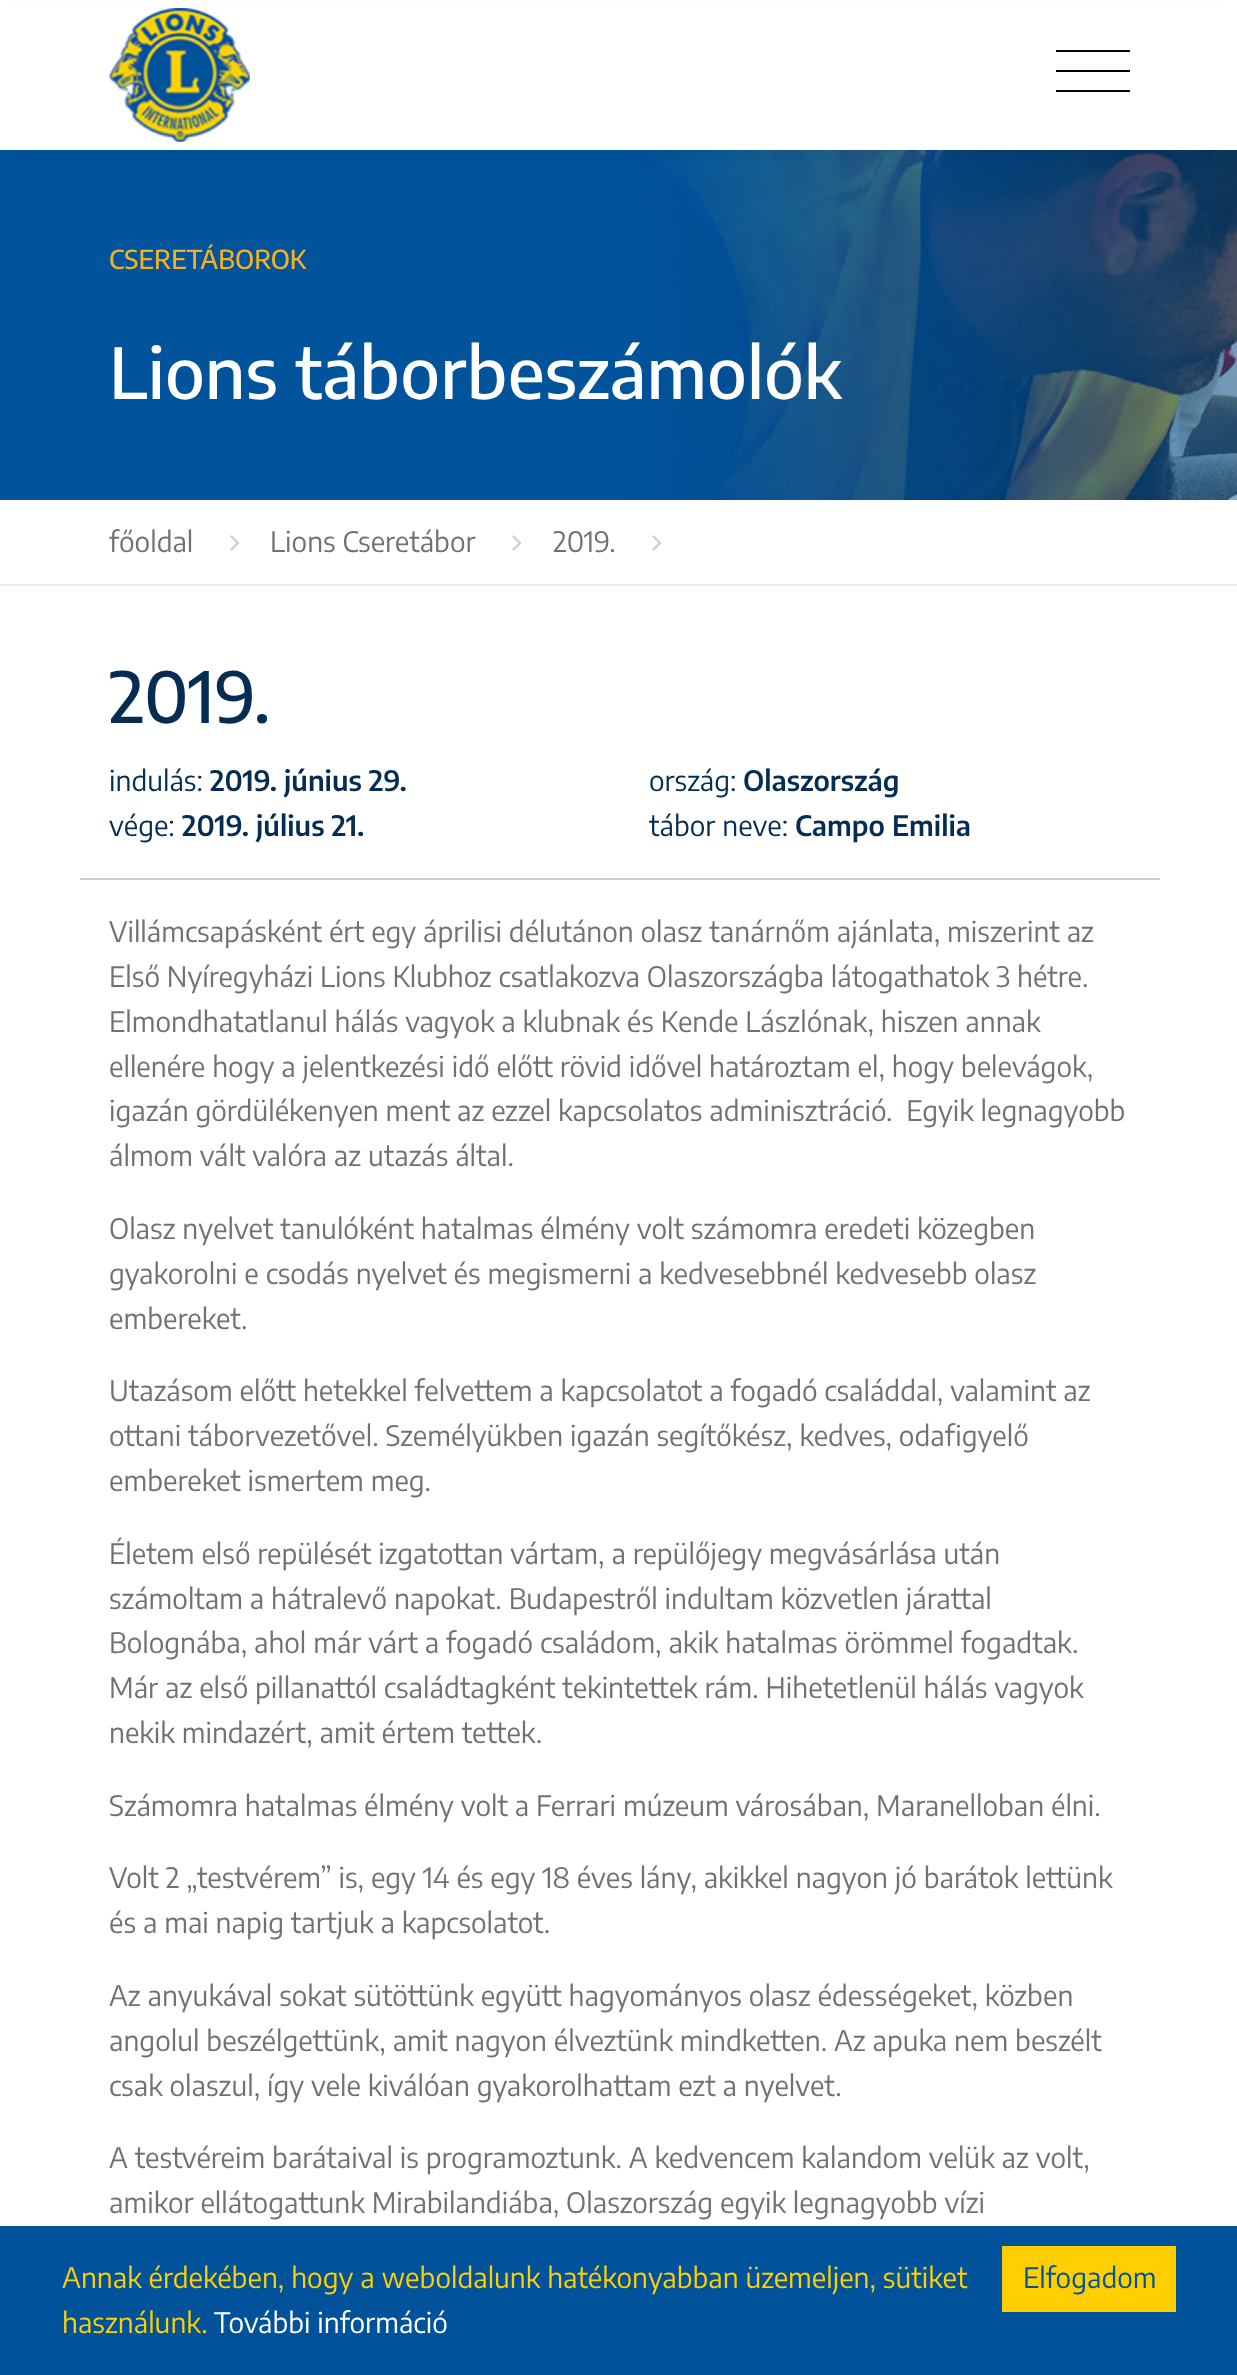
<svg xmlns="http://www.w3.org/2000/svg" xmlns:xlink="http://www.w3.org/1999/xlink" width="1237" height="2375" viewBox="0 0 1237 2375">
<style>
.cls-1{font:500 26px Encode Sans Condensed;fill:#efb225}
.cls-2{font:500 70px Encode Sans Condensed;fill:#ffffff}
.cls-3{font:28px Encode Sans Condensed;fill:#6f7274}
.cls-4{font:500 70px Encode Sans Condensed;fill:#052c52}
.cls-5{font:28px Encode Sans Condensed;fill:#052c52}
.cls-6{font:600 28px Encode Sans Condensed;fill:#052c52}
.cls-7{font:28px Encode Sans Condensed;fill:#ffcf01}
.cls-8{font:28px Encode Sans Condensed;fill:#ffffff}
.cls-9{font:28px Encode Sans Condensed;fill:#00539b}
</style>
<rect width="100%" height="100%" fill="#ffffff"/>
<image xlink:href="image1.png" x="0" y="150" width="1237" height="350"/>
<rect fill="#000000" fill-opacity="0.1" filter="blur(10px)" x="12" y="22" width="1214" height="126"/>
<rect fill="#ffffff" x="0" y="9" width="1237" height="141"/>
<image xlink:href="image0.png" x="109" y="8" width="141" height="134"/>
<rect fill="#000000" x="1056" y="50" width="74" height="2"/>
<rect fill="#000000" x="1056" y="70" width="74" height="2"/>
<rect fill="#000000" x="1056" y="90" width="74" height="2"/>
<rect fill="#eeeeee" x="0" y="584" width="1237" height="2"/>
<image xlink:href="image2.png" x="230" y="535" width="10" height="16"/>
<image xlink:href="image2.png" x="512" y="535" width="10" height="16"/>
<image xlink:href="image2.png" x="652" y="535" width="10" height="16"/>
<rect fill="#cccccc" x="80" y="878" width="1080" height="2"/>
<rect fill="#00539b" x="0" y="2226" width="1237" height="149"/>
<rect fill="#ffcf01" x="1002" y="2246" width="174" height="66"/>
<text class="cls-1" x="109" y="269">CSERETÁBOROK</text>
<text class="cls-2" x="109" y="399">Lions táborbeszámolók</text>
<text class="cls-3" x="109" y="552">főoldal</text>
<text class="cls-3" x="270" y="552">Lions Cseretábor</text>
<text class="cls-3" x="553" y="552">2019.</text>
<text class="cls-4" x="109" y="723">2019.</text>
<text class="cls-5" x="109" y="791">indulás:</text>
<text class="cls-6" x="210" y="791">2019. június 29.</text>
<text class="cls-5" x="109" y="836">vége:</text>
<text class="cls-6" x="182" y="836">2019. július 21.</text>
<text class="cls-5" x="649" y="791">ország:</text>
<text class="cls-6" x="743" y="791">Olaszország</text>
<text class="cls-5" x="649" y="836">tábor neve:</text>
<text class="cls-6" x="795" y="836">Campo Emilia</text>
<text class="cls-3" xml:space="preserve"><tspan x="109" y="942">Villámcsapásként ért egy áprilisi délutánon olasz tanárnőm ajánlata, miszerint az</tspan><tspan x="109" y="987">Első Nyíregyházi Lions Klubhoz csatlakozva Olaszországba látogathatok 3 hétre.</tspan><tspan x="109" y="1032">Elmondhatatlanul hálás vagyok a klubnak és Kende Lászlónak, hiszen annak</tspan><tspan x="109" y="1077">ellenére hogy a jelentkezési idő előtt rövid idővel határoztam el, hogy belevágok,</tspan><tspan x="109" y="1121">igazán gördülékenyen ment az ezzel kapcsolatos adminisztráció.  Egyik legnagyobb</tspan><tspan x="109" y="1166">álmom vált valóra az utazás által.</tspan></text>
<text class="cls-3"><tspan x="109" y="1239">Olasz nyelvet tanulóként hatalmas élmény volt számomra eredeti közegben</tspan><tspan x="109" y="1284">gyakorolni e csodás nyelvet és megismerni a kedvesebbnél kedvesebb olasz</tspan><tspan x="109" y="1329">embereket.</tspan></text>
<text class="cls-3"><tspan x="109" y="1401">Utazásom előtt hetekkel felvettem a kapcsolatot a fogadó családdal, valamint az</tspan><tspan x="109" y="1446">ottani táborvezetővel. Személyükben igazán segítőkész, kedves, odafigyelő</tspan><tspan x="109" y="1491">embereket ismertem meg.</tspan></text>
<text class="cls-3"><tspan x="109" y="1564">Életem első repülését izgatottan vártam, a repülőjegy megvásárlása után</tspan><tspan x="109" y="1609">számoltam a hátralevő napokat. Budapestről indultam közvetlen járattal</tspan><tspan x="109" y="1653">Bolognába, ahol már várt a fogadó családom, akik hatalmas örömmel fogadtak.</tspan><tspan x="109" y="1698">Már az első pillanattól családtagként tekintettek rám. Hihetetlenül hálás vagyok</tspan><tspan x="109" y="1743">nekik mindazért, amit értem tettek.</tspan></text>
<text class="cls-3" x="109" y="1816">Számomra hatalmas élmény volt a Ferrari múzeum városában, Maranelloban élni.</text>
<text class="cls-3"><tspan x="109" y="1888">Volt 2 „testvérem” is, egy 14 és egy 18 éves lány, akikkel nagyon jó barátok lettünk</tspan><tspan x="109" y="1933">és a mai napig tartjuk a kapcsolatot.</tspan></text>
<text class="cls-3"><tspan x="109" y="2006">Az anyukával sokat sütöttünk együtt hagyományos olasz édességeket, közben</tspan><tspan x="109" y="2051">angolul beszélgettünk, amit nagyon élveztünk mindketten. Az apuka nem beszélt</tspan><tspan x="109" y="2096">csak olaszul, így vele kiválóan gyakorolhattam ezt a nyelvet.</tspan></text>
<text class="cls-3"><tspan x="109" y="2168">A testvéreim barátaival is programoztunk. A kedvencem kalandom velük az volt,</tspan><tspan x="109" y="2213">amikor ellátogattunk Mirabilandiába, Olaszország egyik legnagyobb vízi</tspan></text>
<text class="cls-7"><tspan x="62" y="2288">Annak érdekében, hogy a weboldalunk hatékonyabban üzemeljen, sütiket</tspan><tspan x="62" y="2333">használunk.</tspan></text>
<text class="cls-8" x="214" y="2333">További információ</text>
<text class="cls-9" x="1023" y="2288">Elfogadom</text>
</svg>
